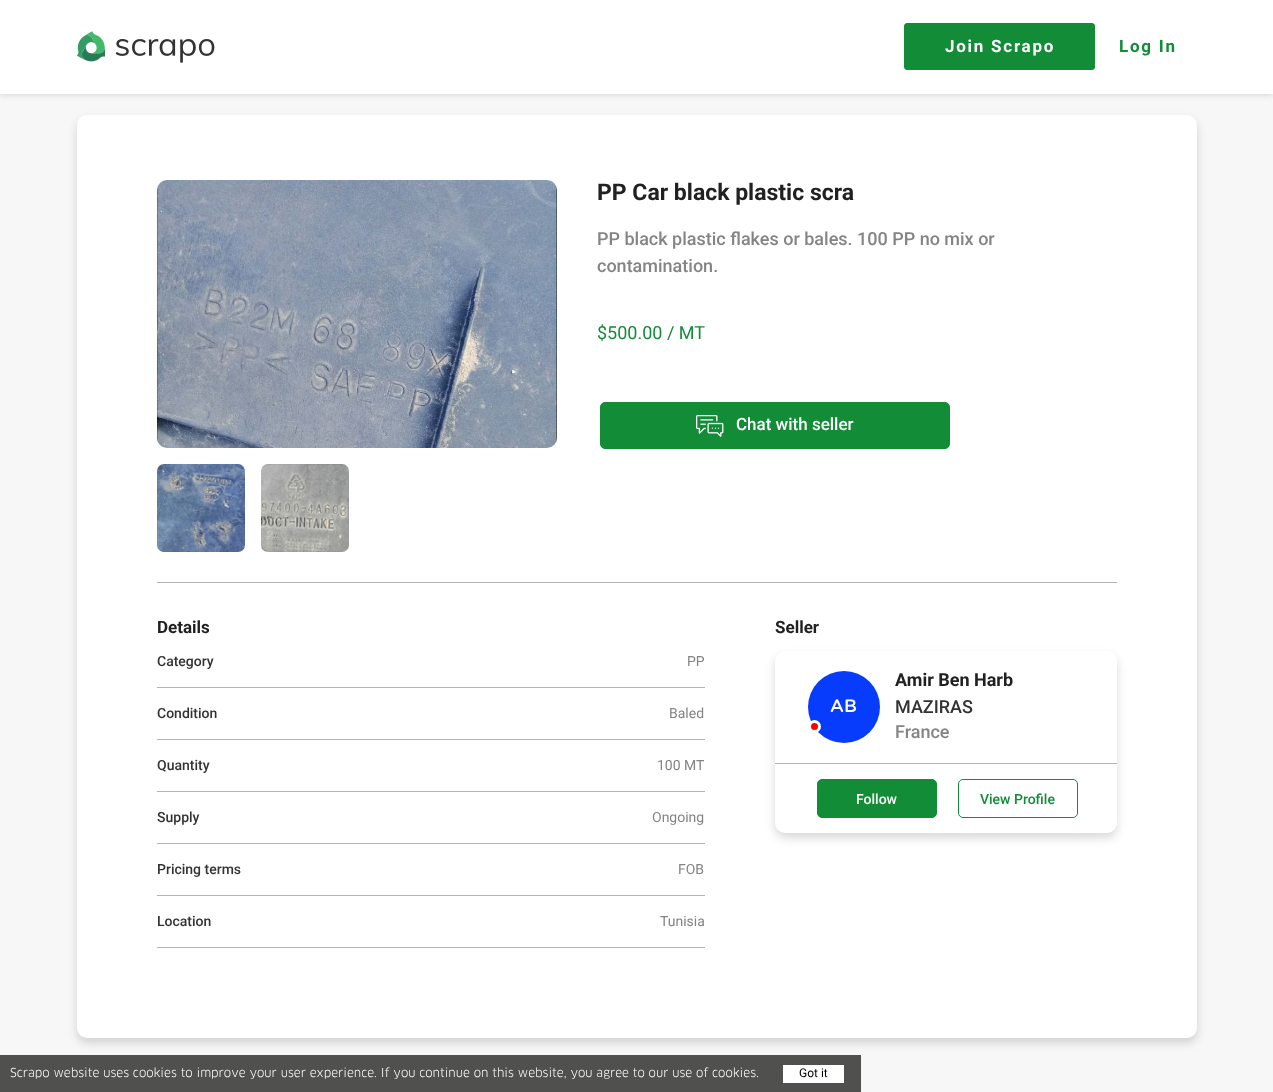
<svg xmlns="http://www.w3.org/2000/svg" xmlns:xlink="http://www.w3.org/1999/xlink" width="1273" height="1092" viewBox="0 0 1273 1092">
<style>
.cls-1{font:bold 17px Roboto;letter-spacing:1.75px;fill:#ffffff}
.cls-2{font:bold 17px Roboto;letter-spacing:1.75px;fill:#128c37}
.cls-3{font:bold 23px Roboto;fill:#212121}
.cls-4{font:500 18px Roboto;fill:#848484}
.cls-5{font:18px Roboto;fill:#128c37}
.cls-6{font:500 17px Roboto;fill:#ffffff}
.cls-7{font:bold 17px Roboto;fill:#212121}
.cls-8{font:500 14px Roboto;fill:#333333}
.cls-9{font:14px Roboto;fill:#848484}
.cls-10{font:500 18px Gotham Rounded;fill:#ffffff}
.cls-11{font:bold 18px Roboto;fill:#212121}
.cls-12{font:500 18px Roboto;fill:#333333}
.cls-13{font:500 14px Roboto;fill:#ffffff}
.cls-14{font:500 14px Roboto;fill:#128c37}
.cls-15{font:12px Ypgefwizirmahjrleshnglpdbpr;fill:#ffffff}
.cls-16{font:12px Roboto;fill:#000000}
</style>
<rect width="100%" height="100%" fill="#f7f7f7"/>
<rect fill="#000000" fill-opacity="0.1" filter="blur(2.5px)" x="0" y="1" width="1273" height="95"/>
<rect fill="#ffffff" x="0" y="0" width="1273" height="94"/>
<image xlink:href="image0.png" x="77" y="31" width="138" height="32"/>
<rect fill="#128c37" stroke="#128c37" x="904.5" y="23.5" width="190" height="46" rx="2.5"/>
<rect fill="#000000" fill-opacity="0.15" filter="blur(5px)" x="77" y="120" width="1120" height="923" rx="10"/>
<rect fill="#ffffff" x="77" y="115" width="1120" height="923" rx="10"/>
<rect fill="#b2b2bb" x="157" y="582" width="960" height="1"/>
<image xlink:href="image1.png" x="157" y="180" width="400" height="268"/>
<image xlink:href="image2.png" x="157" y="464" width="88" height="88"/>
<image xlink:href="image3.png" x="261" y="464" width="88" height="88"/>
<rect fill="#128c37" stroke="#128c37" x="600.5" y="402.5" width="349" height="46" rx="4.5"/>
<image xlink:href="image4.png" x="696" y="415" width="28" height="22"/>
<rect fill="#b2b2bb" x="157" y="687" width="548" height="1"/>
<rect fill="#b2b2bb" x="157" y="739" width="548" height="1"/>
<rect fill="#b2b2bb" x="157" y="791" width="548" height="1"/>
<rect fill="#b2b2bb" x="157" y="843" width="548" height="1"/>
<rect fill="#b2b2bb" x="157" y="895" width="548" height="1"/>
<rect fill="#b2b2bb" x="157" y="947" width="548" height="1"/>
<rect fill="#000000" fill-opacity="0.15" filter="blur(5px)" x="775" y="656" width="342" height="182" rx="10"/>
<rect fill="#ffffff" x="775" y="651" width="342" height="182" rx="10"/>
<rect fill="#b2b2bb" x="775" y="763" width="342" height="1"/>
<circle fill="#083cfc" cx="844" cy="707" r="36"/>
<circle fill="#ff0000" stroke="#ffffff" stroke-width="3" cx="814.5" cy="726.5" r="5"/>
<rect fill="#128c37" stroke="#128c37" x="817.5" y="779.5" width="119" height="38" rx="4.5"/>
<rect fill="none" stroke="#128c37" x="958.5" y="779.5" width="119" height="38" rx="4.5"/>
<rect fill="#50504e" x="0" y="1055" width="861" height="37"/>
<rect fill="#ffffff" x="783" y="1065" width="61" height="18"/>
<text class="cls-1" x="945" y="52">Join Scrapo</text>
<text class="cls-2" x="1119" y="52">Log In</text>
<text class="cls-3" x="597" y="200">PP Car black plastic scra</text>
<text class="cls-4"><tspan x="597" y="245">PP black plastic flakes or bales. 100 PP no mix or</tspan><tspan x="597" y="272">contamination.</tspan></text>
<text class="cls-5" x="597" y="339">$500.00 / MT</text>
<text class="cls-6" x="736" y="430">Chat with seller</text>
<text class="cls-7" x="157" y="633">Details</text>
<text class="cls-8" x="157" y="666">Category</text>
<text class="cls-9" x="687" y="666">PP</text>
<text class="cls-8" x="157" y="718">Condition</text>
<text class="cls-9" x="669" y="718">Baled</text>
<text class="cls-8" x="157" y="770">Quantity</text>
<text class="cls-9" x="657" y="770">100 MT</text>
<text class="cls-8" x="157" y="822">Supply</text>
<text class="cls-9" x="652" y="822">Ongoing</text>
<text class="cls-8" x="157" y="874">Pricing terms</text>
<text class="cls-9" x="678" y="874">FOB</text>
<text class="cls-8" x="157" y="926">Location</text>
<text class="cls-9" x="660" y="926">Tunisia</text>
<text class="cls-7" x="775" y="633">Seller</text>
<text class="cls-10" x="830" y="712">AB</text>
<text class="cls-11" x="895" y="686">Amir Ben Harb</text>
<text class="cls-12" x="895" y="713">MAZIRAS</text>
<text class="cls-4" x="895" y="738">France</text>
<text class="cls-13" x="856" y="804">Follow</text>
<text class="cls-14" x="980" y="804">View Profile</text>
<text class="cls-15" x="10" y="1077">Scrapo website uses cookies to improve your user experience. If you continue on this website, you agree to our use of cookies.</text>
<text class="cls-16" x="799" y="1077">Got it</text>
</svg>
